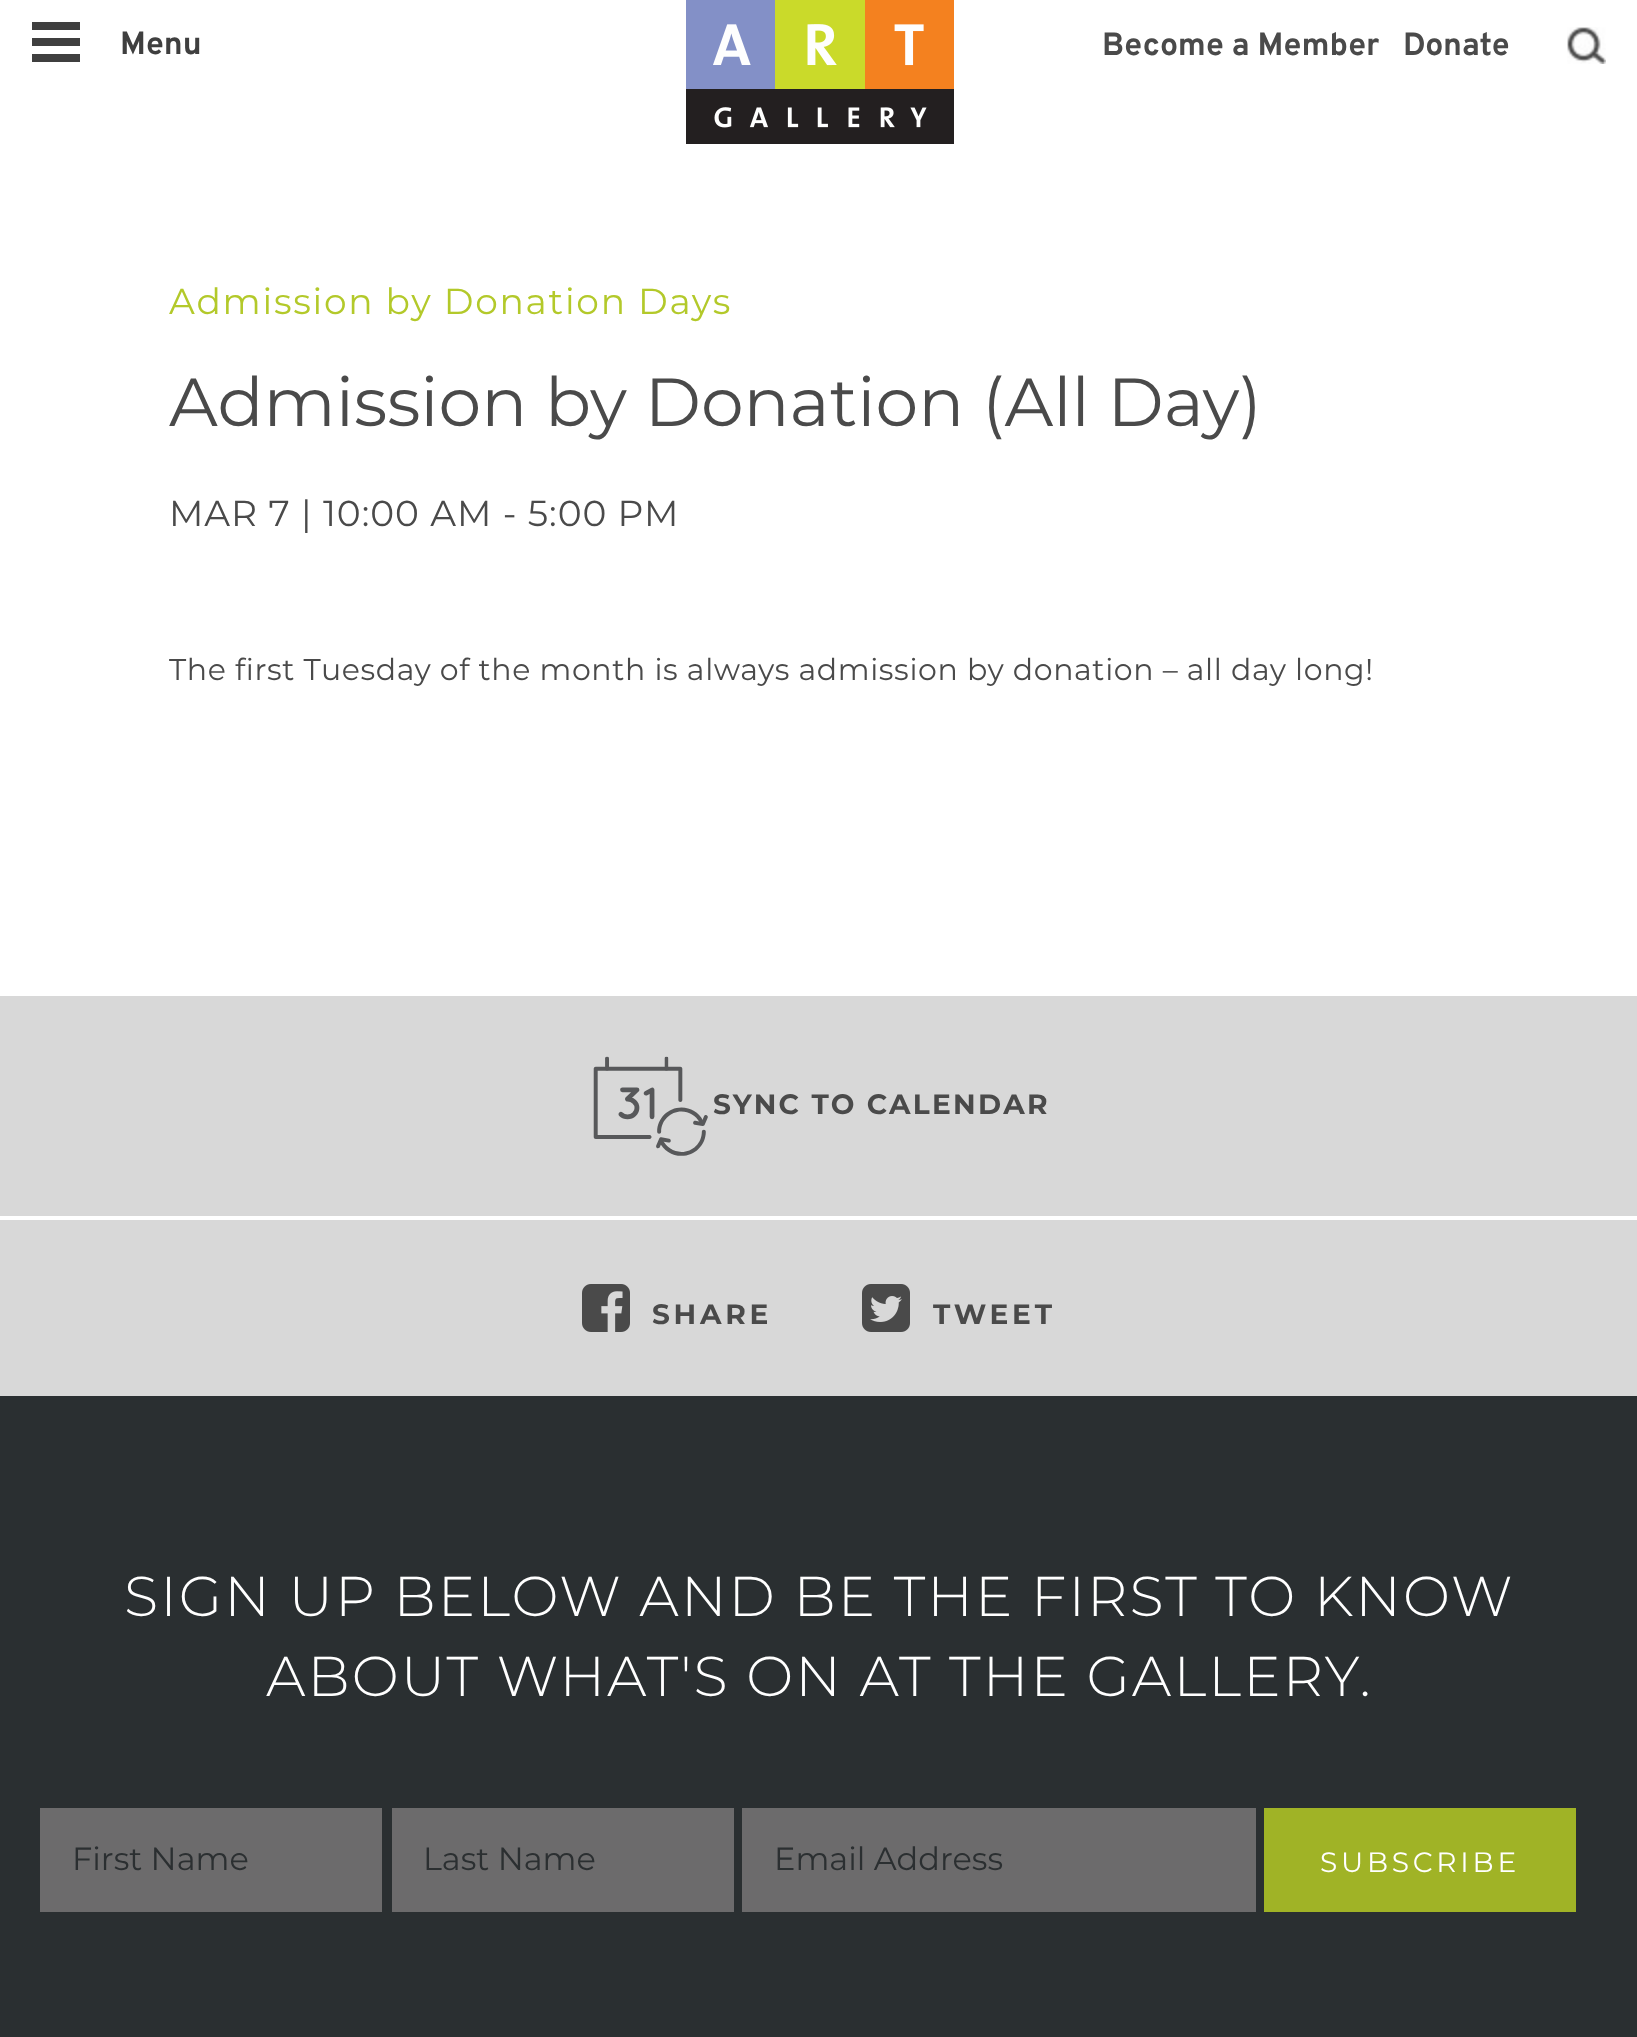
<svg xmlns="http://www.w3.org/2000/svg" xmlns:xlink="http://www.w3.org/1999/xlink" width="1637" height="2037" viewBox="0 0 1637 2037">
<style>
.cls-1{font:bold 32px Overpass;fill:#3f3f3f}
.cls-2{font:bold 32px Overpass;fill:#4a4a4a}
.cls-3{font:36px Montserrat;letter-spacing:1.75px;fill:#b3c92a}
.cls-4{font:68px Montserrat;fill:#4a4a4a}
.cls-5{font:36px Montserrat;letter-spacing:0.95px;fill:#4a4a4a}
.cls-6{font:30px Montserrat;letter-spacing:0.62px;fill:#4a4a4a}
.cls-7{font:bold 28px Montserrat;letter-spacing:2.3px;fill:#4a4a4a}
.cls-8{font:bold 28px Montserrat;letter-spacing:3.75px;fill:#4a4a4a}
.cls-9{font:300 56px Montserrat;letter-spacing:2.1px;fill:#ffffff}
.cls-10{font:32px Montserrat;fill:#2b2f31}
.cls-11{font:28px Montserrat;letter-spacing:3.75px;fill:#ffffff}
</style>
<rect width="100%" height="100%" fill="#ffffff"/>
<rect fill="#3f3f3f" x="32" y="22" width="48" height="8"/>
<rect fill="#3f3f3f" x="32" y="38" width="48" height="8"/>
<rect fill="#3f3f3f" x="32" y="54" width="48" height="8"/>
<image xlink:href="image0.png" x="686" y="0" width="268" height="144"/>
<image xlink:href="image1.png" x="1567" y="27" width="39" height="37"/>
<rect fill="#d8d8d8" x="0" y="996" width="1637" height="220"/>
<image xlink:href="image2.png" x="593" y="1056" width="115" height="100"/>
<rect fill="#d8d8d8" x="0" y="1220" width="1637" height="176"/>
<image xlink:href="image3.png" x="582" y="1284" width="48" height="48"/>
<image xlink:href="image4.png" x="862" y="1284" width="48" height="48"/>
<rect fill="#2a2f31" x="0" y="1396" width="1637" height="641"/>
<rect fill="#6c6b6c" x="40" y="1808" width="342" height="104"/>
<rect fill="#6c6b6c" x="392" y="1808" width="342" height="104"/>
<rect fill="#6c6b6c" x="742" y="1808" width="514" height="104"/>
<rect fill="#a0b326" x="1264" y="1808" width="312" height="104"/>
<text class="cls-1" x="120" y="54">Menu</text>
<text class="cls-2" x="1102" y="55">Become a Member</text>
<text class="cls-2" x="1403" y="55">Donate</text>
<text class="cls-3" x="169" y="314">Admission by Donation Days</text>
<text class="cls-4" x="169" y="426">Admission by Donation (All Day)</text>
<text class="cls-5" x="169" y="526">MAR 7 | 10:00 AM - 5:00 PM</text>
<text class="cls-6" x="169" y="680">The first Tuesday of the month is always admission by donation – all day long!</text>
<text class="cls-7" x="713" y="1114">SYNC TO CALENDAR</text>
<text class="cls-8" x="652" y="1324">SHARE</text>
<text class="cls-8" x="933" y="1324">TWEET</text>
<text class="cls-9" x="124" y="1616">SIGN UP BELOW AND BE THE FIRST TO KNOW</text>
<text class="cls-9" x="266" y="1696">ABOUT WHAT'S ON AT THE GALLERY.</text>
<text class="cls-10" x="72" y="1870">First Name</text>
<text class="cls-10" x="423" y="1870">Last Name</text>
<text class="cls-10" x="774" y="1870">Email Address</text>
<text class="cls-11" x="1320" y="1872">SUBSCRIBE</text>
</svg>
